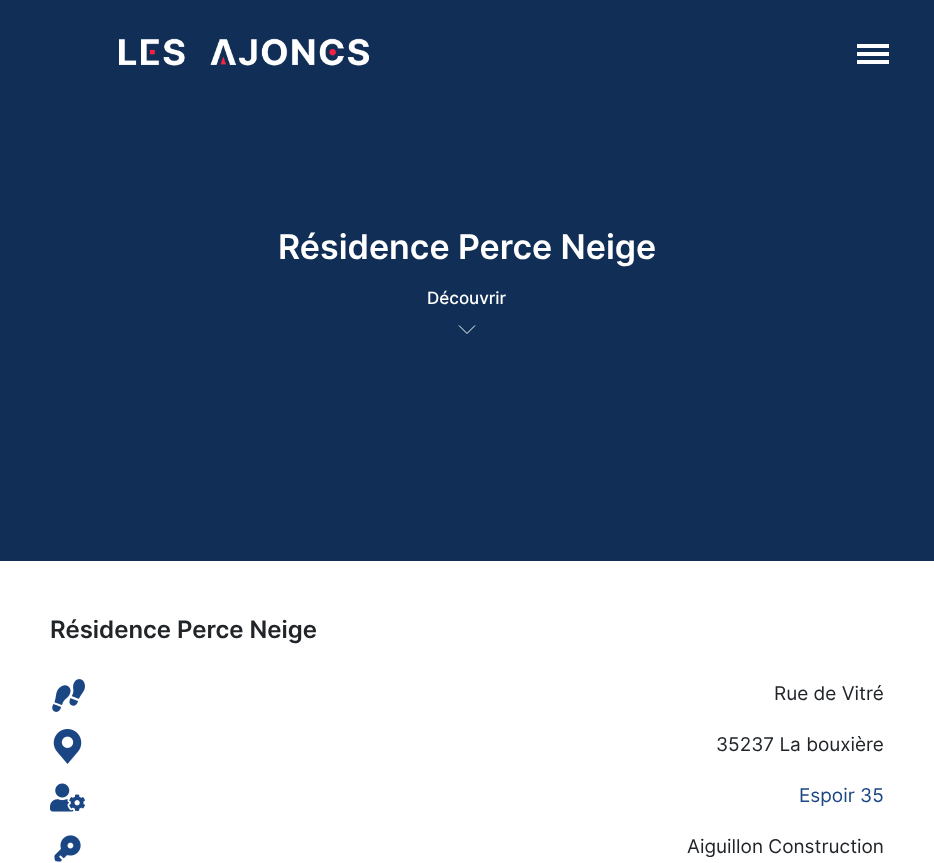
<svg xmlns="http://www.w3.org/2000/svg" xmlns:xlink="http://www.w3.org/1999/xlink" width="934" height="863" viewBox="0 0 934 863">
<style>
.cls-1{font:600 34px Inter;fill:#ffffff}
.cls-2{font:500 17px Inter;fill:#ffffff}
.cls-3{font:600 24px Inter;fill:#212529}
.cls-4{font:19px Inter;fill:#212529}
.cls-5{font:19px Inter;fill:#1a4684}
</style>
<rect width="100%" height="100%" fill="#ffffff"/>
<rect fill="#112e56" x="0" y="0" width="934" height="561"/>
<image xlink:href="image0.png" x="119" y="38" width="250" height="28"/>
<rect fill="#ffffff" x="857" y="44" width="32" height="4"/>
<rect fill="#ffffff" x="857" y="52" width="32" height="4"/>
<rect fill="#ffffff" x="857" y="60" width="32" height="4"/>
<path fill="none" stroke="#ffffff" d="M459 325.5L467 333.5L475 325.5"/>
<image xlink:href="image1.png" x="52" y="679" width="33" height="33"/>
<image xlink:href="image2.png" x="53" y="729" width="29" height="35"/>
<image xlink:href="image3.png" x="50" y="783" width="35" height="29"/>
<image xlink:href="image4.png" x="54" y="835" width="27" height="27"/>
<text class="cls-1" x="278" y="259">Résidence Perce Neige</text>
<text class="cls-2" x="427" y="304">Découvrir</text>
<text class="cls-3" x="50" y="638">Résidence Perce Neige</text>
<text class="cls-4" x="774" y="700">Rue de Vitré</text>
<text class="cls-4" x="716" y="751">35237 La bouxière</text>
<text class="cls-5" x="799" y="802">Espoir 35</text>
<text class="cls-4" x="687" y="853">Aiguillon Construction</text>
</svg>
